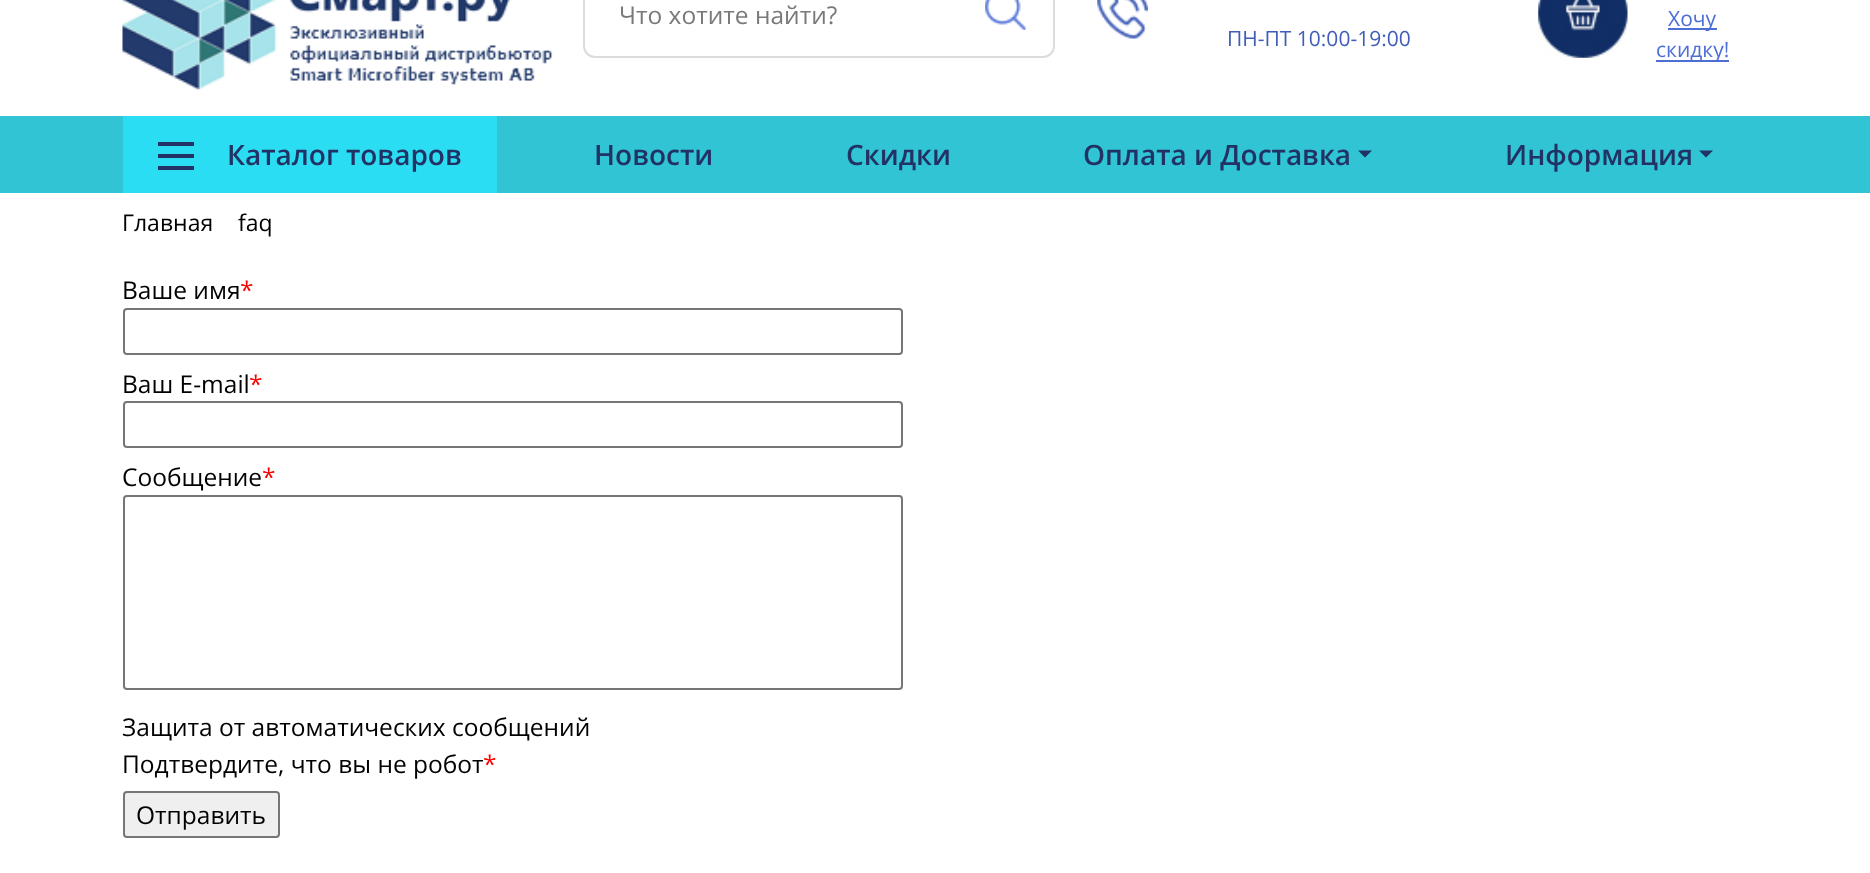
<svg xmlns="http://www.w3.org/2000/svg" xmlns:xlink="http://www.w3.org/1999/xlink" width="1870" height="873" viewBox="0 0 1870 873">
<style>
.cls-1{font:24.5px Open Sans;fill:#797979}
.cls-2{font:21px Open Sans;fill:#415db7}
.cls-3{font:21px Open Sans;fill:#4d6ed7}
.cls-4{font:600 28px Open Sans;fill:#223264}
.cls-5{font:23px Open Sans;fill:#000000}
.cls-6{font:24.5px Open Sans;fill:#000000}
.cls-7{font:24.5px Open Sans;fill:#ff0000}
</style>
<rect width="100%" height="100%" fill="#ffffff"/>
<image xlink:href="image0.png" x="122" y="0" width="431" height="90"/>
<rect fill="none" stroke="#dcdcdc" stroke-width="2" x="584" y="-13" width="470" height="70" rx="11"/>
<image xlink:href="image1.png" x="985" y="0" width="41" height="30"/>
<image xlink:href="image2.png" x="1097" y="0" width="51" height="39"/>
<image xlink:href="image3.png" x="1538" y="0" width="90" height="58"/>
<rect fill="#4d6ed7" x="1668" y="28" width="49" height="2"/>
<rect fill="#4d6ed7" x="1656" y="60" width="73" height="2"/>
<rect fill="#30c4d5" x="0" y="116" width="1870" height="77"/>
<rect fill="#2bddf2" x="123" y="116" width="374" height="77"/>
<rect fill="#223264" x="158" y="142" width="36" height="4"/>
<rect fill="#223264" x="158" y="154" width="36" height="4"/>
<rect fill="#223264" x="158" y="166" width="36" height="4"/>
<path fill="#223264" d="M1358 150.5H1372L1365 157.5Z"/>
<path fill="#223264" d="M1699 150.5H1713L1706 157.5Z"/>
<rect fill="none" stroke="#767676" stroke-width="2" x="124" y="309" width="778" height="45" rx="3"/>
<rect fill="none" stroke="#767676" stroke-width="2" x="124" y="402" width="778" height="45" rx="3"/>
<rect fill="none" stroke="#767676" stroke-width="2" x="124" y="496" width="778" height="193" rx="3"/>
<rect fill="#efefef" stroke="#767676" stroke-width="2" x="124" y="792" width="155" height="45" rx="3"/>
<text class="cls-1" x="619" y="24">Что хотите найти?</text>
<text class="cls-2" x="1227" y="46">ПН-ПТ 10:00-19:00</text>
<text class="cls-3" x="1668" y="26">Хочу</text>
<text class="cls-3" x="1656" y="57">скидку!</text>
<text class="cls-4" x="227" y="165">Каталог товаров</text>
<text class="cls-4" x="594" y="165">Новости</text>
<text class="cls-4" x="846" y="165">Скидки</text>
<text class="cls-4" x="1083" y="165">Оплата и Доставка</text>
<text class="cls-4" x="1505" y="165">Информация</text>
<text class="cls-5" x="122" y="231">Главная</text>
<text class="cls-5" x="238" y="231">faq</text>
<text class="cls-6" x="122" y="299">Ваше имя</text>
<text class="cls-7" x="240" y="299">*</text>
<text class="cls-6" x="122" y="393">Ваш E-mail</text>
<text class="cls-7" x="249" y="393">*</text>
<text class="cls-6" x="122" y="486">Сообщение</text>
<text class="cls-7" x="262" y="486">*</text>
<text class="cls-6"><tspan x="122" y="736">Защита от автоматических сообщений</tspan><tspan x="122" y="773">Подтвердите, что вы не робот</tspan></text>
<text class="cls-7" x="483" y="773">*</text>
<text class="cls-6" x="136" y="824">Отправить</text>
</svg>
